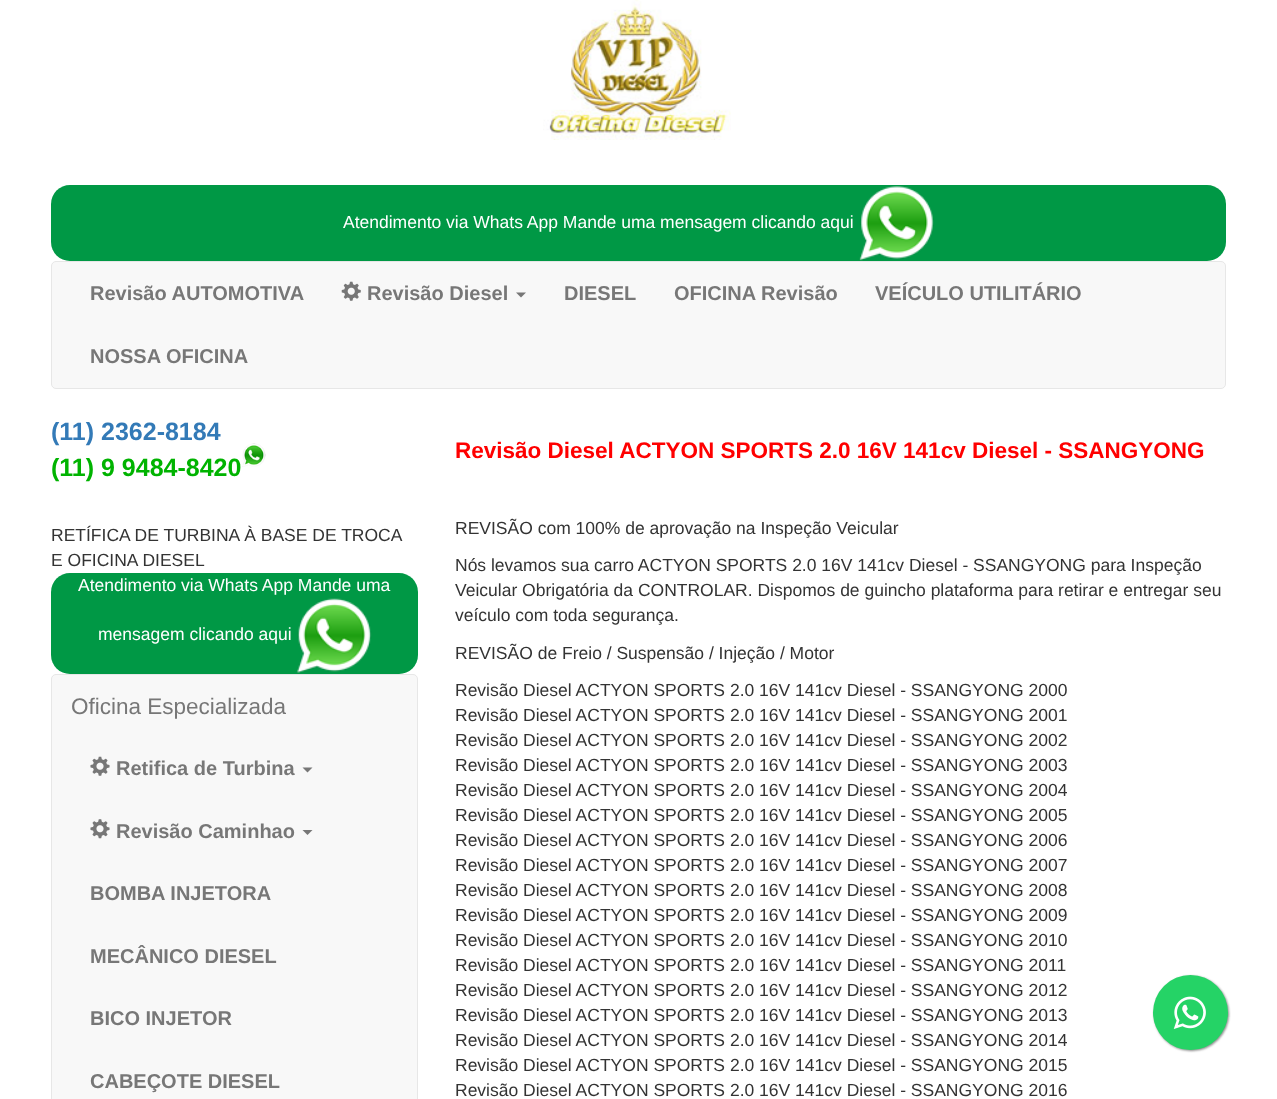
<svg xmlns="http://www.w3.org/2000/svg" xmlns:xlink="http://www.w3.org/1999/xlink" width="1277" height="1099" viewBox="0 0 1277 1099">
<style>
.cls-1{font:17.5px Liberation Sans;fill:#ffffff}
.cls-2{font:bold 20px Liberation Sans;fill:#777777}
.cls-3{font:bold 25px Liberation Sans;fill:#337ab7}
.cls-4{font:bold 25px Liberation Sans;fill:#00b300}
.cls-5{font:17.5px Liberation Sans;fill:#333333}
.cls-6{font:22.5px Liberation Sans;fill:#777777}
.cls-7{font:bold 22.5px Liberation Sans;fill:#ff0000}
</style>
<rect width="100%" height="100%" fill="#ffffff"/>
<image xlink:href="image0.png" x="543" y="0" width="188" height="140"/>
<rect fill="#009845" x="51" y="185" width="1175" height="76" rx="19"/>
<image xlink:href="image1.png" x="859" y="186" width="75" height="75"/>
<rect fill="#f8f8f8" stroke="#e7e7e7" x="51.5" y="261.5" width="1174" height="127" rx="4.5"/>
<image xlink:href="image2.png" x="341" y="281" width="20" height="20"/>
<path fill="#777777" d="M516 292.5H526L521 297.5Z"/>
<image xlink:href="image3.png" x="242" y="443" width="24" height="24"/>
<rect fill="#009845" x="51" y="573" width="367" height="101" rx="19"/>
<image xlink:href="image4.png" x="296" y="598" width="76" height="75"/>
<rect fill="#f8f8f8" stroke="#e7e7e7" x="51.5" y="674.5" width="366" height="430" rx="4.5"/>
<image xlink:href="image5.png" x="90" y="756" width="20" height="20"/>
<path fill="#777777" d="M302.5 767.5H312.5L307.5 772.5Z"/>
<image xlink:href="image6.png" x="90" y="819" width="20" height="20"/>
<path fill="#777777" d="M302.5 830H312.5L307.5 835Z"/>
<rect fill="#888888" filter="blur(1px)" x="1154" y="976" width="75" height="75" rx="37.5"/>
<circle fill="#25d366" cx="1190.5" cy="1012.5" r="37.5"/>
<image xlink:href="image7.png" x="1173" y="996" width="33" height="33"/>
<text class="cls-1" x="343" y="228">Atendimento via Whats App Mande uma mensagem clicando aqui</text>
<text class="cls-2" x="90" y="300">Revisão AUTOMOTIVA</text>
<text class="cls-2" x="367" y="300">Revisão Diesel</text>
<text class="cls-2" x="564" y="300">DIESEL</text>
<text class="cls-2" x="674" y="300">OFICINA Revisão</text>
<text class="cls-2" x="875" y="300">VEÍCULO UTILITÁRIO</text>
<text class="cls-2" x="90" y="363">NOSSA OFICINA</text>
<text class="cls-3" x="51" y="440">(11) 2362-8184</text>
<text class="cls-4" x="51" y="476">(11) 9 9484-8420</text>
<text class="cls-5"><tspan x="51" y="541">RETÍFICA DE TURBINA À BASE DE TROCA</tspan><tspan x="51" y="566">E OFICINA DIESEL</tspan></text>
<text class="cls-1" x="78" y="591">Atendimento via Whats App Mande uma</text>
<text class="cls-1" x="98" y="640">mensagem clicando aqui</text>
<text class="cls-6" x="71" y="714">Oficina Especializada</text>
<text class="cls-2" x="116" y="775">Retifica de Turbina</text>
<text class="cls-2" x="116" y="838">Revisão Caminhao</text>
<text class="cls-2" x="90" y="900">BOMBA INJETORA</text>
<text class="cls-2" x="90" y="963">MECÂNICO DIESEL</text>
<text class="cls-2" x="90" y="1025">BICO INJETOR</text>
<text class="cls-2" x="90" y="1088">CABEÇOTE DIESEL</text>
<text class="cls-7" x="455" y="458">Revisão Diesel ACTYON SPORTS 2.0 16V 141cv Diesel - SSANGYONG</text>
<text class="cls-5" x="455" y="534">REVISÃO com 100% de aprovação na Inspeção Veicular</text>
<text class="cls-5"><tspan x="455" y="571">Nós levamos sua carro ACTYON SPORTS 2.0 16V 141cv Diesel - SSANGYONG para Inspeção</tspan><tspan x="455" y="596">Veicular Obrigatória da CONTROLAR. Dispomos de guincho plataforma para retirar e entregar seu</tspan><tspan x="455" y="621">veículo com toda segurança.</tspan></text>
<text class="cls-5" x="455" y="659">REVISÃO de Freio / Suspensão / Injeção / Motor</text>
<text class="cls-5"><tspan x="455" y="696">Revisão Diesel ACTYON SPORTS 2.0 16V 141cv Diesel - SSANGYONG 2000</tspan><tspan x="455" y="721">Revisão Diesel ACTYON SPORTS 2.0 16V 141cv Diesel - SSANGYONG 2001</tspan><tspan x="455" y="746">Revisão Diesel ACTYON SPORTS 2.0 16V 141cv Diesel - SSANGYONG 2002</tspan><tspan x="455" y="771">Revisão Diesel ACTYON SPORTS 2.0 16V 141cv Diesel - SSANGYONG 2003</tspan><tspan x="455" y="796">Revisão Diesel ACTYON SPORTS 2.0 16V 141cv Diesel - SSANGYONG 2004</tspan><tspan x="455" y="821">Revisão Diesel ACTYON SPORTS 2.0 16V 141cv Diesel - SSANGYONG 2005</tspan><tspan x="455" y="846">Revisão Diesel ACTYON SPORTS 2.0 16V 141cv Diesel - SSANGYONG 2006</tspan><tspan x="455" y="871">Revisão Diesel ACTYON SPORTS 2.0 16V 141cv Diesel - SSANGYONG 2007</tspan><tspan x="455" y="896">Revisão Diesel ACTYON SPORTS 2.0 16V 141cv Diesel - SSANGYONG 2008</tspan><tspan x="455" y="921">Revisão Diesel ACTYON SPORTS 2.0 16V 141cv Diesel - SSANGYONG 2009</tspan><tspan x="455" y="946">Revisão Diesel ACTYON SPORTS 2.0 16V 141cv Diesel - SSANGYONG 2010</tspan><tspan x="455" y="971">Revisão Diesel ACTYON SPORTS 2.0 16V 141cv Diesel - SSANGYONG 2011</tspan><tspan x="455" y="996">Revisão Diesel ACTYON SPORTS 2.0 16V 141cv Diesel - SSANGYONG 2012</tspan><tspan x="455" y="1021">Revisão Diesel ACTYON SPORTS 2.0 16V 141cv Diesel - SSANGYONG 2013</tspan><tspan x="455" y="1046">Revisão Diesel ACTYON SPORTS 2.0 16V 141cv Diesel - SSANGYONG 2014</tspan><tspan x="455" y="1071">Revisão Diesel ACTYON SPORTS 2.0 16V 141cv Diesel - SSANGYONG 2015</tspan><tspan x="455" y="1096">Revisão Diesel ACTYON SPORTS 2.0 16V 141cv Diesel - SSANGYONG 2016</tspan></text>
</svg>
